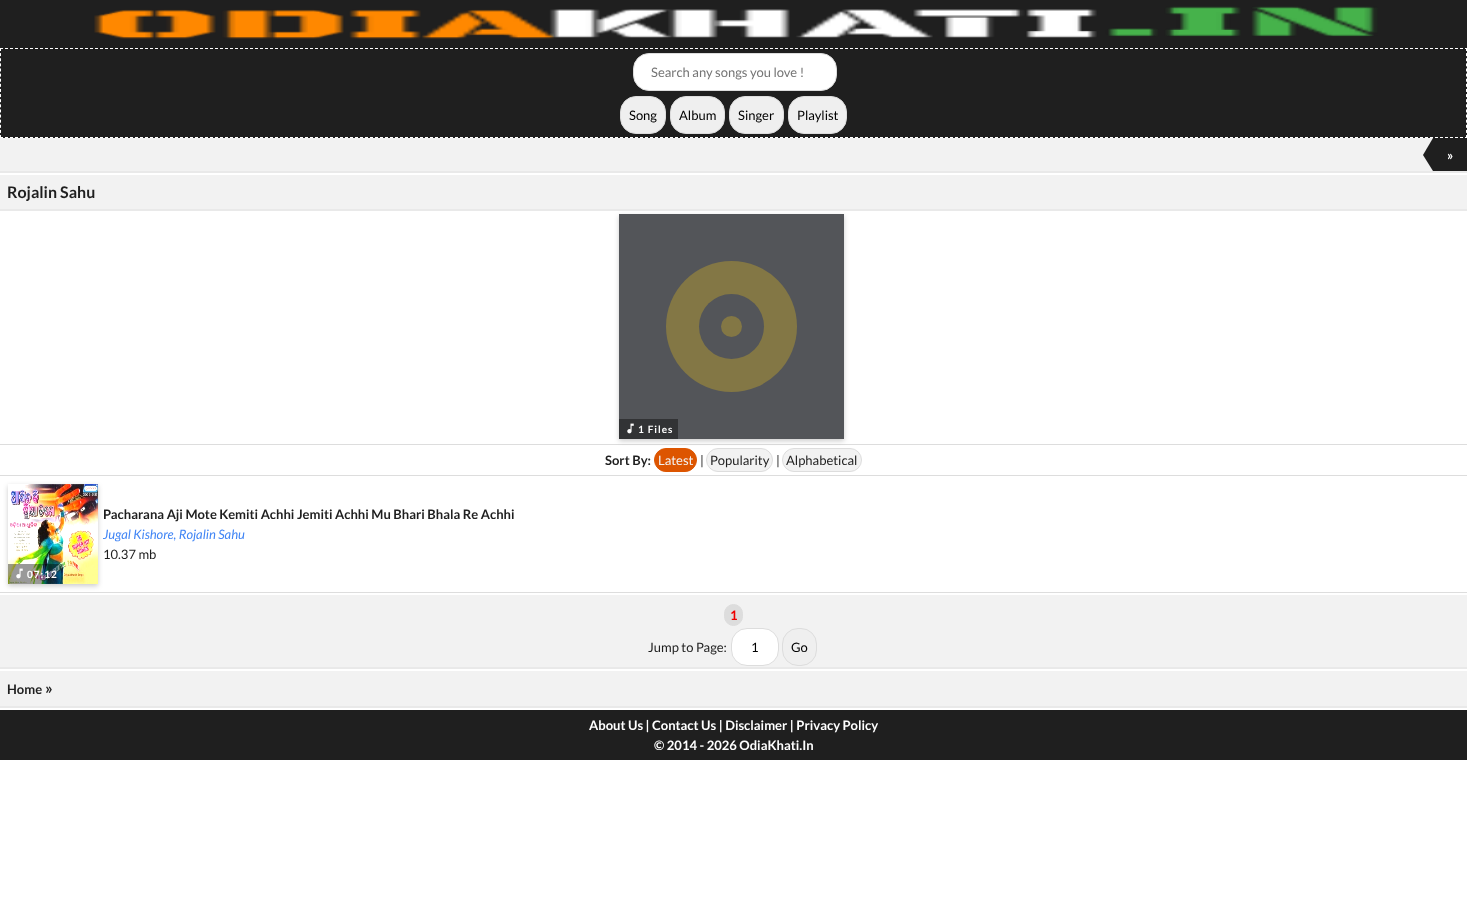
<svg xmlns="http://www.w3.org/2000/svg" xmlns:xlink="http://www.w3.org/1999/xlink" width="1467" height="918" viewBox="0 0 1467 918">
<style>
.cls-1{font:13px Lato;fill:#757575}
.cls-2{font:13px Lato;fill:#000000}
.cls-3{font:bold 13px Lato;fill:#ffffff}
.cls-4{font:bold 16px Lato;fill:#1f1f1f}
.cls-5{font:bold 10px Lato;letter-spacing:1px;fill:#ffffff}
.cls-6{font:bold 13px Lato;fill:#1f1f1f}
.cls-7{font:13px Lato;fill:#f2f2f2}
.cls-8{font:13px Lato;fill:#1f1f1f}
.cls-9{font:italic 13px Lato;fill:#4286f5}
.cls-10{font:bold 13px Lato;fill:#ee0000}
</style>
<rect width="100%" height="100%" fill="#ffffff"/>
<rect fill="#1f1f1f" x="0" y="0" width="1467" height="138"/>
<image xlink:href="image0.png" x="94" y="6" width="1284" height="33"/>
<path fill="none" stroke="#ffffff" stroke-dasharray="3 2" d="M0 48.5H1467"/>
<path fill="none" stroke="#ffffff" stroke-dasharray="3 2.12" d="M1466.5 48V138"/>
<path fill="none" stroke="#ffffff" stroke-dasharray="3 2" d="M0 137.5H1467"/>
<path fill="none" stroke="#ffffff" stroke-dasharray="3 2.12" d="M.5 48V138"/>
<rect fill="#ffffff" stroke="#dddddd" x="633.5" y="53.5" width="203" height="37" rx="15.5"/>
<rect fill="#efefef" stroke="#dddddd" x="620.5" y="96.5" width="45" height="37" rx="15.5"/>
<rect fill="#efefef" stroke="#dddddd" x="670.5" y="96.5" width="54" height="37" rx="15.5"/>
<rect fill="#efefef" stroke="#dddddd" x="729.5" y="96.5" width="54" height="37" rx="15.5"/>
<rect fill="#efefef" stroke="#dddddd" x="788.5" y="96.5" width="58" height="37" rx="15.5"/>
<rect fill="#f2f2f2" x="0" y="138" width="1433" height="33"/>
<rect fill="#e9e9e9" x="0" y="171" width="1467" height="2"/>
<rect fill="#1f1f1f" x="1433" y="138" width="34" height="33"/>
<path fill="#1f1f1f" d="M1433 138V171L1423 155Z"/>
<rect fill="#f2f2f2" x="0" y="175" width="1467" height="34"/>
<rect fill="#e9e9e9" x="0" y="209" width="1467" height="2"/>
<rect fill="#dddddd" x="0" y="444" width="1467" height="1"/>
<rect fill="#dd5500" stroke="#dd5500" x="654.5" y="448.5" width="42" height="23" rx="11.5"/>
<rect fill="#f2f2f2" stroke="#dddddd" x="706.5" y="448.5" width="66" height="23" rx="11.5"/>
<rect fill="#f2f2f2" stroke="#dddddd" x="782.5" y="448.5" width="79" height="23" rx="11.5"/>
<rect fill="#000000" fill-opacity="0.2" filter="blur(2.5px)" x="619" y="216" width="225" height="225"/>
<rect fill="#535559" x="619" y="214" width="225" height="225"/>
<circle fill="#837745" cx="731.5" cy="326.5" r="65.5"/>
<circle fill="#535559" cx="731.5" cy="326.5" r="32.5"/>
<circle fill="#837745" cx="731.5" cy="326.5" r="10.5"/>
<rect fill="#323335" x="619" y="419" width="59" height="20"/>
<image xlink:href="image1.png" x="627" y="423" width="7" height="11"/>
<rect fill="#dddddd" x="0" y="475" width="1467" height="1"/>
<rect fill="#dddddd" x="0" y="592" width="1467" height="1"/>
<rect fill="#000000" fill-opacity="0.2" filter="blur(2.5px)" x="8" y="486" width="90" height="100"/>
<image xlink:href="image2.png" x="8" y="484" width="90" height="100"/>
<rect fill="#000000" fill-opacity="0.4" x="8" y="564" width="55" height="20"/>
<image xlink:href="image3.png" x="16" y="568" width="7" height="11"/>
<rect fill="#f2f2f2" x="0" y="595" width="1467" height="72"/>
<rect fill="#e9e9e9" x="0" y="667" width="1467" height="2"/>
<rect fill="#dddddd" stroke="#dddddd" x="724.5" y="604.5" width="18" height="21" rx="9"/>
<rect fill="#ffffff" stroke="#dddddd" x="731.5" y="628.5" width="47" height="37" rx="15.5"/>
<rect fill="#efefef" stroke="#dddddd" x="782.5" y="628.5" width="34" height="37" rx="15.5"/>
<rect fill="#f2f2f2" x="0" y="671" width="1467" height="35"/>
<rect fill="#e9e9e9" x="0" y="706" width="1467" height="2"/>
<rect fill="#1f1f1f" x="0" y="710" width="1467" height="50"/>
<text class="cls-1" x="651" y="77">Search any songs you love !</text>
<text class="cls-2" x="629" y="120">Song</text>
<text class="cls-2" x="679" y="120">Album</text>
<text class="cls-2" x="738" y="120">Singer</text>
<text class="cls-2" x="797" y="120">Playlist</text>
<text class="cls-3" x="1447" y="160">»</text>
<text class="cls-4" x="7" y="198">Rojalin Sahu</text>
<text class="cls-5" x="638" y="433">1 Files</text>
<text class="cls-6" x="605" y="465">Sort By:</text>
<text class="cls-7" x="658" y="465">Latest</text>
<text class="cls-8" x="700" y="465">|</text>
<text class="cls-8" x="710" y="465">Popularity</text>
<text class="cls-8" x="776" y="465">|</text>
<text class="cls-8" x="786" y="465">Alphabetical</text>
<text class="cls-6" x="103" y="519">Pacharana Aji Mote Kemiti Achhi Jemiti Achhi Mu Bhari Bhala Re Achhi</text>
<text class="cls-9" x="103" y="539">Jugal Kishore, Rojalin Sahu</text>
<text class="cls-8" x="103" y="559">10.37 mb</text>
<text class="cls-5" x="27" y="578">07:12</text>
<text class="cls-10" x="730" y="620">1</text>
<text class="cls-8" x="648" y="652">Jump to Page:</text>
<text class="cls-2" x="751" y="652">1</text>
<text class="cls-2" x="791" y="652">Go</text>
<text class="cls-6" x="7" y="694">Home</text>
<text class="cls-4" x="45" y="694">»</text>
<text class="cls-3" x="589" y="730">About Us | Contact Us | Disclaimer | Privacy Policy</text>
<text class="cls-3" x="654" y="750">© 2014 - 2026 OdiaKhati.In</text>
</svg>
